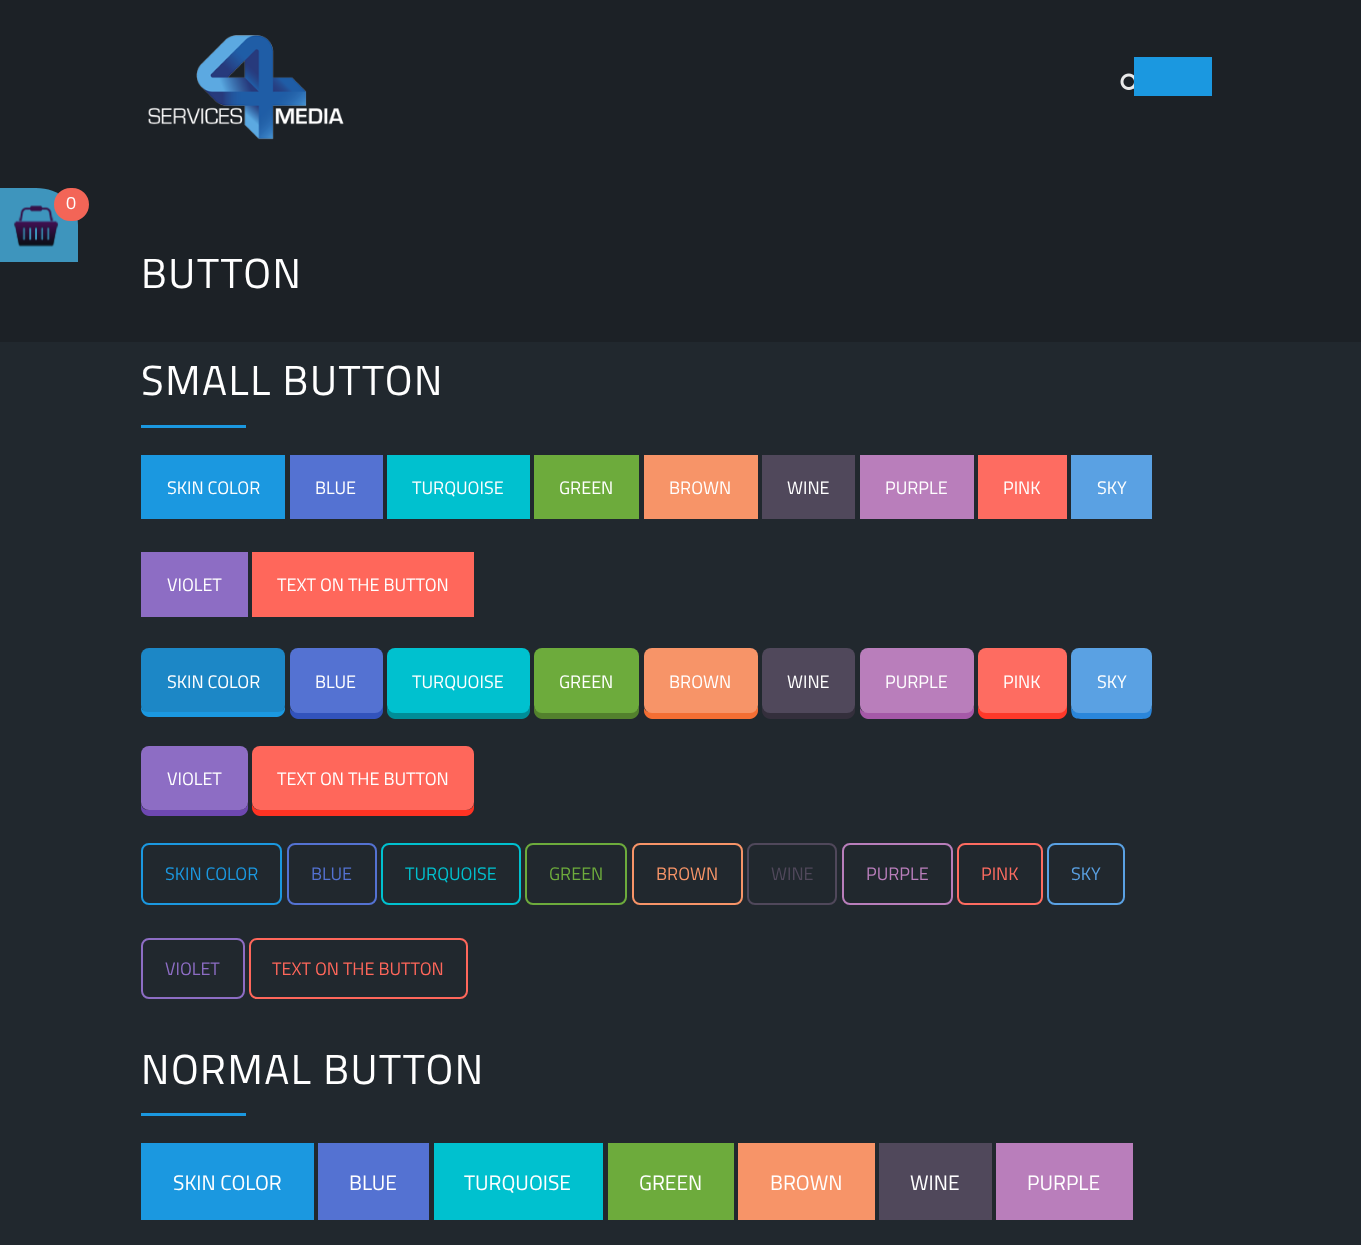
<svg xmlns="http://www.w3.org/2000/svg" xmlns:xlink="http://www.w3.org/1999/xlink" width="1361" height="1245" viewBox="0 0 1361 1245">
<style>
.cls-1{font:18px Titillium Web;fill:#ffffff}
.cls-2{font:42px Titillium Web;letter-spacing:1.5px;fill:#ffffff}
.cls-3{font:18px Titillium Web;fill:#1b98e0}
.cls-4{font:18px Titillium Web;fill:#5472d2}
.cls-5{font:18px Titillium Web;fill:#00c1cf}
.cls-6{font:18px Titillium Web;fill:#6dab3c}
.cls-7{font:18px Titillium Web;fill:#f79468}
.cls-8{font:18px Titillium Web;fill:#50485b}
.cls-9{font:18px Titillium Web;fill:#b97ebb}
.cls-10{font:18px Titillium Web;fill:#fe6c61}
.cls-11{font:18px Titillium Web;fill:#5aa1e3}
.cls-12{font:18px Titillium Web;fill:#8d6dc4}
.cls-13{font:18px Titillium Web;fill:#ff675b}
.cls-14{font:21px Titillium Web;fill:#ffffff}
</style>
<rect width="100%" height="100%" fill="#1c2126"/>
<path fill="#3e95bd" d="M-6 188H36C59 188 78 204 78 225V262H-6Z"/>
<image xlink:href="image0.png" x="13" y="205" width="46" height="42"/>
<rect fill="#f36557" stroke="#f36557" stroke-width="2" x="55" y="189" width="33" height="31" rx="15.5"/>
<image xlink:href="image1.png" x="148" y="35" width="196" height="105"/>
<image xlink:href="image2.png" x="1120" y="73" width="14" height="17"/>
<rect fill="#1b98e0" x="1134" y="57" width="78" height="39"/>
<rect fill="#21282e" x="0" y="342" width="1361" height="903"/>
<rect fill="#1b98e0" x="141" y="425" width="105" height="3"/>
<rect fill="#1b98e0" x="141" y="455" width="144" height="64"/>
<rect fill="#5472d2" x="290" y="455" width="93" height="64"/>
<rect fill="#00c1cf" x="387" y="455" width="143" height="64"/>
<rect fill="#6dab3c" x="534" y="455" width="105" height="64"/>
<rect fill="#f79468" x="644" y="455" width="114" height="64"/>
<rect fill="#50485b" x="762" y="455" width="93" height="64"/>
<rect fill="#b97ebb" x="860" y="455" width="114" height="64"/>
<rect fill="#fe6c61" x="978" y="455" width="89" height="64"/>
<rect fill="#5aa1e3" x="1071" y="455" width="81" height="64"/>
<rect fill="#8d6dc4" x="141" y="552" width="107" height="65"/>
<rect fill="#ff675b" x="252" y="552" width="222" height="65"/>
<path fill="#1b98e0" d="M141 705V709C141 713 145 717 149 717H277C281 717 285 713 285 709V705C285 709 282 712 278 712H148C144 712 141 709 141 705Z"/>
<rect fill="#1b98e0" fill-opacity="0.85" x="141" y="648" width="144" height="65" rx="8"/>
<path fill="#3253bc" d="M290 708V711C290 715 294 719 298 719H375C379 719 383 715 383 711V662L382 659V705C382 709 379 712 375 712H297C294 712 291 711 290 708Z"/>
<rect fill="#5472d2" x="290" y="648" width="93" height="65" rx="8"/>
<path fill="#008d97" d="M387 705V711C387 715 391 719 395 719H522C526 719 530 715 530 711V662V659V705C530 709 526 712 522 712H394C390 712 387 709 387 705Z"/>
<rect fill="#00c1cf" x="387" y="648" width="143" height="65" rx="8"/>
<path fill="#53812d" d="M534 705V711C534 715 538 719 542 719H631C635 719 639 715 639 711V705C639 709 636 712 632 712H542C537 712 534 709 534 705Z"/>
<rect fill="#6dab3c" x="534" y="648" width="105" height="65" rx="8"/>
<path fill="#f46e33" d="M644 708V711C644 715 648 719 652 719H750C754 719 758 715 758 711V662V659V705C758 709 754 712 750 712H651C648 712 645 711 644 708Z"/>
<rect fill="#f79468" x="644" y="648" width="114" height="65" rx="8"/>
<path fill="#342f3c" d="M762 705V711C762 715 766 719 770 719H847C851 719 855 715 855 711V705C855 709 852 712 848 712H770C765 712 762 709 762 705Z"/>
<rect fill="#50485b" x="762" y="648" width="93" height="65" rx="8"/>
<path fill="#a559a8" d="M860 708V711C860 715 864 719 868 719H966C970 719 974 715 974 711V662V659V705C974 709 970 712 966 712H867C864 712 861 711 860 708Z"/>
<rect fill="#b97ebb" x="860" y="648" width="114" height="65" rx="8"/>
<path fill="#fe3829" d="M978 705V711C978 715 982 719 986 719H1059C1063 719 1067 715 1067 711V662L1066 659V705C1066 709 1063 712 1059 712H986C981 712 978 709 978 705Z"/>
<rect fill="#fe6c61" x="978" y="648" width="89" height="65" rx="8"/>
<path fill="#2a86db" d="M1071 705C1071 720 1074 719 1090 719H1133C1149 719 1152 720 1152 705C1152 709 1149 712 1144 712H1078C1074 712 1071 709 1071 705Z"/>
<rect fill="#5aa1e3" x="1071" y="648" width="81" height="65" rx="8"/>
<path fill="#6e48b1" d="M141 802V808C141 812 145 816 149 816H240C244 816 248 812 248 808V760V757V802C248 807 244 810 240 810H148C144 810 141 807 141 802Z"/>
<rect fill="#8d6dc4" x="141" y="746" width="107" height="64" rx="8"/>
<path fill="#ff3323" d="M252 802V808C252 812 256 816 260 816H466C470 816 474 812 474 808V802C474 807 471 810 466 810H260C255 810 252 807 252 802Z"/>
<rect fill="#ff675b" x="252" y="746" width="222" height="64" rx="8"/>
<rect fill="none" stroke="#1b98e0" stroke-width="2" x="142" y="844" width="139" height="60" rx="7"/>
<rect fill="none" stroke="#5472d2" stroke-width="2" x="288" y="844" width="88" height="60" rx="7"/>
<rect fill="none" stroke="#00c1cf" stroke-width="2" x="382" y="844" width="138" height="60" rx="7"/>
<rect fill="none" stroke="#6dab3c" stroke-width="2" x="526" y="844" width="100" height="60" rx="7"/>
<rect fill="none" stroke="#f79468" stroke-width="2" x="633" y="844" width="109" height="60" rx="7"/>
<rect fill="none" stroke="#50485b" stroke-width="2" x="748" y="844" width="88" height="60" rx="7"/>
<rect fill="none" stroke="#b97ebb" stroke-width="2" x="843" y="844" width="109" height="60" rx="7"/>
<rect fill="none" stroke="#fe6c61" stroke-width="2" x="958" y="844" width="84" height="60" rx="7"/>
<rect fill="none" stroke="#5aa1e3" stroke-width="2" x="1048" y="844" width="76" height="60" rx="7"/>
<rect fill="none" stroke="#8d6dc4" stroke-width="2" x="142" y="939" width="102" height="59" rx="7"/>
<rect fill="none" stroke="#ff675b" stroke-width="2" x="250" y="939" width="217" height="59" rx="7"/>
<rect fill="#1b98e0" x="141" y="1113" width="105" height="3"/>
<rect fill="#1b98e0" x="141" y="1143" width="173" height="77"/>
<rect fill="#5472d2" x="318" y="1143" width="111" height="77"/>
<rect fill="#00c1cf" x="434" y="1143" width="169" height="77"/>
<rect fill="#6dab3c" x="608" y="1143" width="126" height="77"/>
<rect fill="#f79468" x="738" y="1143" width="137" height="77"/>
<rect fill="#50485b" x="879" y="1143" width="113" height="77"/>
<rect fill="#b97ebb" x="996" y="1143" width="137" height="77"/>
<text class="cls-1" x="66" y="209">0</text>
<text class="cls-2" x="141" y="288">BUTTON</text>
<text class="cls-2" x="141" y="395">SMALL BUTTON</text>
<text class="cls-1" x="167" y="494">SKIN COLOR</text>
<text class="cls-1" x="315" y="494">BLUE</text>
<text class="cls-1" x="412" y="494">TURQUOISE</text>
<text class="cls-1" x="559" y="494">GREEN</text>
<text class="cls-1" x="669" y="494">BROWN</text>
<text class="cls-1" x="787" y="494">WINE</text>
<text class="cls-1" x="885" y="494">PURPLE</text>
<text class="cls-1" x="1003" y="494">PINK</text>
<text class="cls-1" x="1097" y="494">SKY</text>
<text class="cls-1" x="167" y="591">VIOLET</text>
<text class="cls-1" x="277" y="591">TEXT ON THE BUTTON</text>
<text class="cls-1" x="167" y="688">SKIN COLOR</text>
<text class="cls-1" x="315" y="688">BLUE</text>
<text class="cls-1" x="412" y="688">TURQUOISE</text>
<text class="cls-1" x="559" y="688">GREEN</text>
<text class="cls-1" x="669" y="688">BROWN</text>
<text class="cls-1" x="787" y="688">WINE</text>
<text class="cls-1" x="885" y="688">PURPLE</text>
<text class="cls-1" x="1003" y="688">PINK</text>
<text class="cls-1" x="1097" y="688">SKY</text>
<text class="cls-1" x="167" y="785">VIOLET</text>
<text class="cls-1" x="277" y="785">TEXT ON THE BUTTON</text>
<text class="cls-3" x="165" y="880">SKIN COLOR</text>
<text class="cls-4" x="311" y="880">BLUE</text>
<text class="cls-5" x="405" y="880">TURQUOISE</text>
<text class="cls-6" x="549" y="880">GREEN</text>
<text class="cls-7" x="656" y="880">BROWN</text>
<text class="cls-8" x="771" y="880">WINE</text>
<text class="cls-9" x="866" y="880">PURPLE</text>
<text class="cls-10" x="981" y="880">PINK</text>
<text class="cls-11" x="1071" y="880">SKY</text>
<text class="cls-12" x="165" y="975">VIOLET</text>
<text class="cls-13" x="272" y="975">TEXT ON THE BUTTON</text>
<text class="cls-2" x="141" y="1084">NORMAL BUTTON</text>
<text class="cls-14" x="173" y="1190">SKIN COLOR</text>
<text class="cls-14" x="349" y="1190">BLUE</text>
<text class="cls-14" x="464" y="1190">TURQUOISE</text>
<text class="cls-14" x="639" y="1190">GREEN</text>
<text class="cls-14" x="770" y="1190">BROWN</text>
<text class="cls-14" x="910" y="1190">WINE</text>
<text class="cls-14" x="1027" y="1190">PURPLE</text>
</svg>
